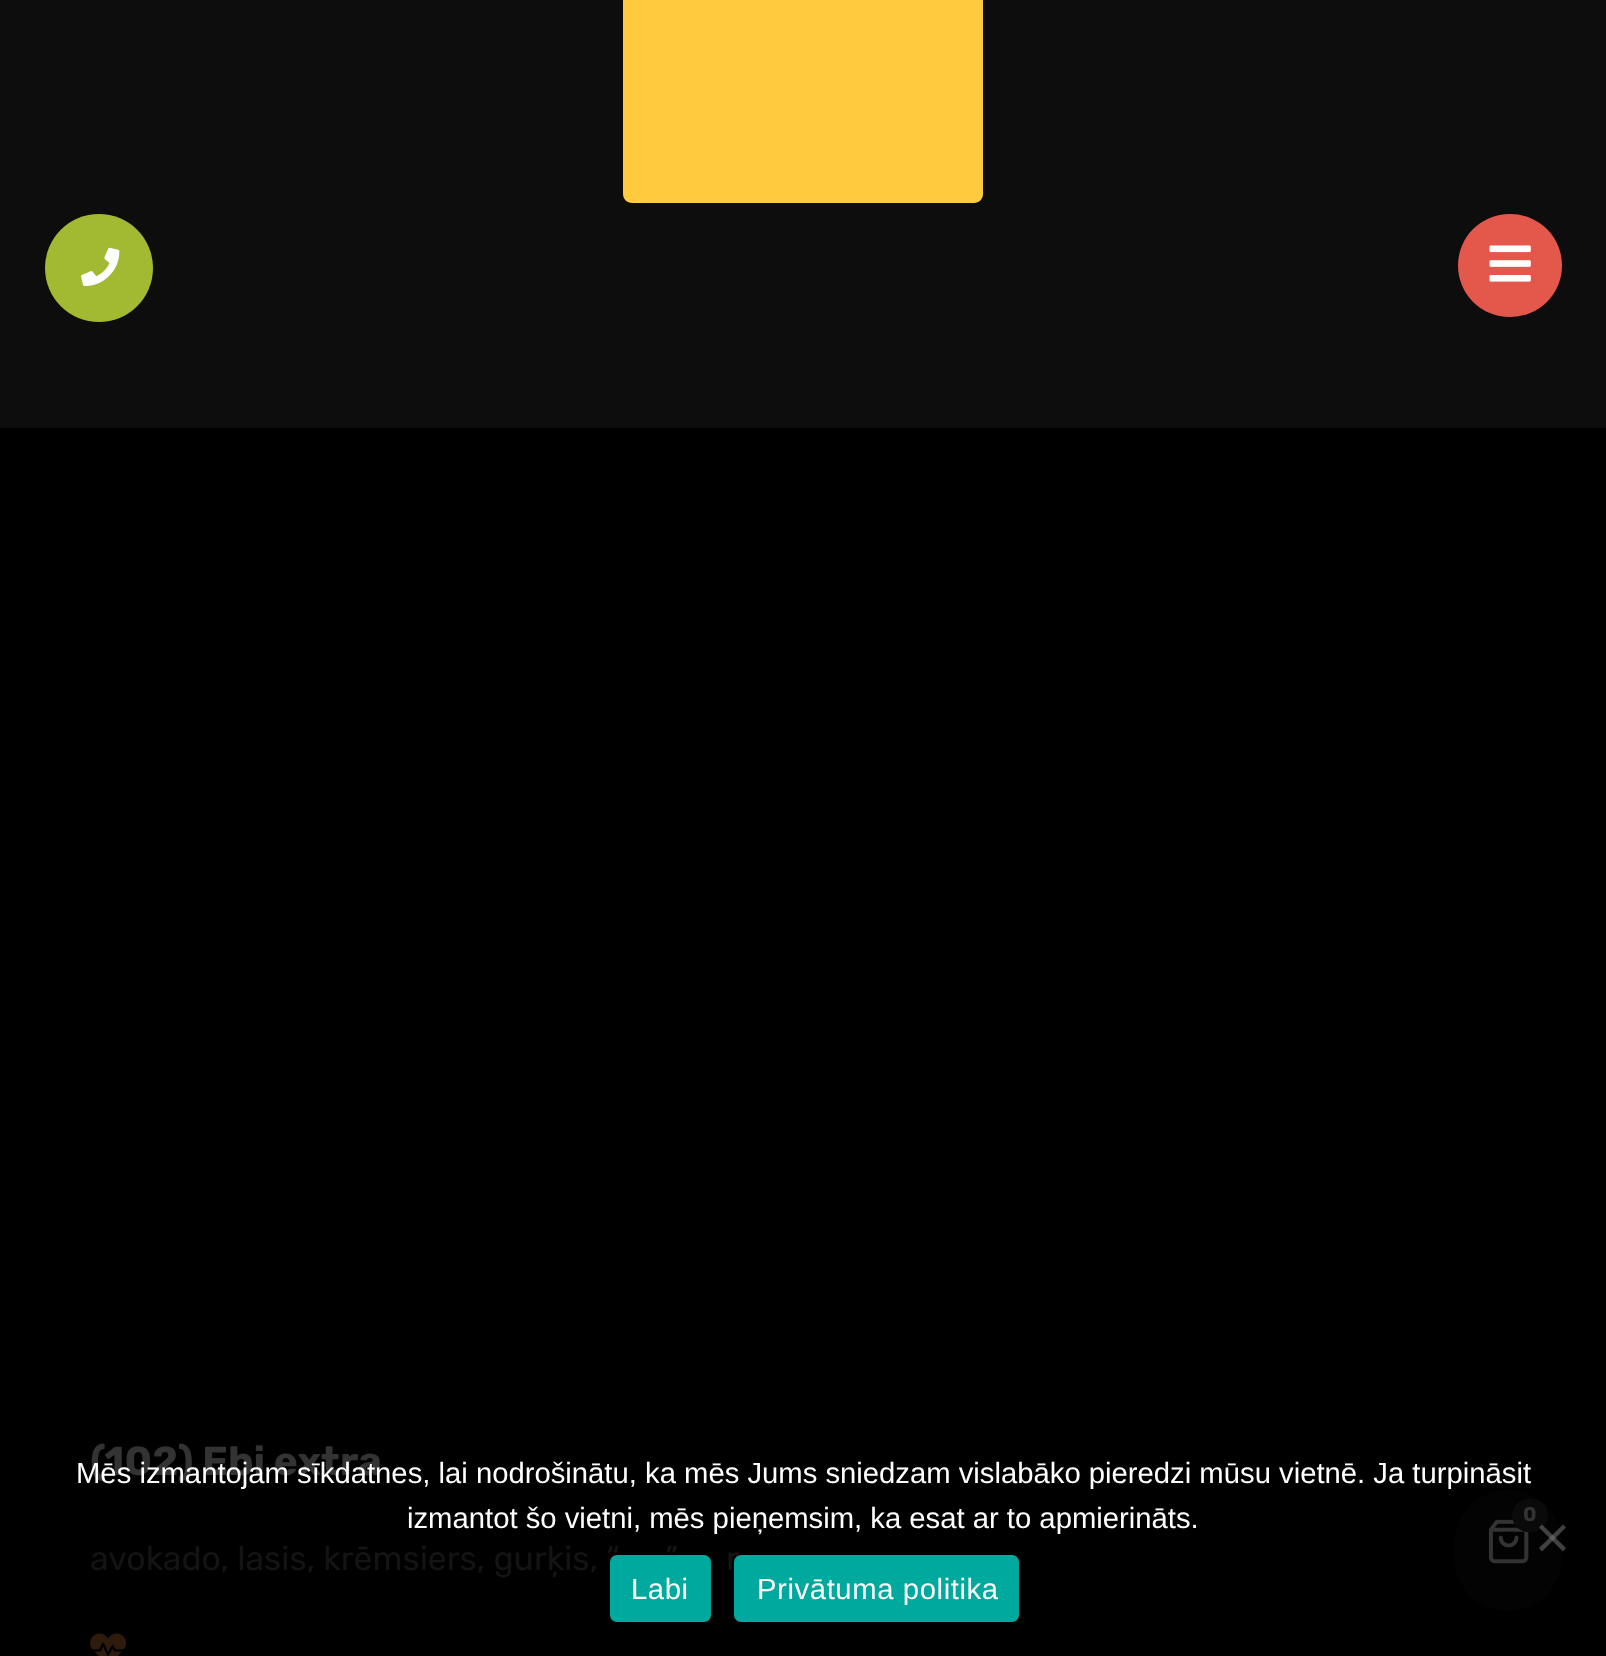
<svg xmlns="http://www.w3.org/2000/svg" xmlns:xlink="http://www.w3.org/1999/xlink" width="1606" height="1656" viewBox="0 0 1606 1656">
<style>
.cls-1{font:bold 40.5px Rubik;fill:#333333}
.cls-2{font:33.75px Rubik;fill:#141414}
.cls-3{font:bold 20px Rubik;fill:#333333}
.cls-4{font:29.25px Liberation Sans;fill:#ffffff}
.cls-5{font:29.25px Liberation Sans;letter-spacing:0.6px;fill:#ffffff}
</style>
<rect width="100%" height="100%" fill="#000000"/>
<image xlink:href="image0.png" x="90" y="1633" width="37" height="23"/>
<rect fill="#0d0d0d" x="0" y="0" width="1606" height="428"/>
<path fill="#ffca3e" d="M623 0H983V194C983 199 979 203 974 203H632C627 203 623 199 623 194Z"/>
<circle fill="#a1ba32" cx="99" cy="268" r="54"/>
<image xlink:href="image1.png" x="81" y="247" width="39" height="39"/>
<rect fill="#e4584b" x="1458" y="214" width="104" height="103" rx="51.5"/>
<image xlink:href="image2.png" x="1489" y="245" width="42" height="37"/>
<rect fill="#030303" x="1454" y="1490" width="108" height="121" rx="54"/>
<image xlink:href="image3.png" x="1488" y="1519" width="41" height="45"/>
<rect fill="#0a0a0a" x="1512" y="1499" width="36" height="33" rx="16.5"/>
<path fill="#808080" fill-opacity="0.5" d="M1563 1524.5L1566 1527.5L1542 1551.5L1539 1548Z"/>
<path fill="#808080" fill-opacity="0.5" d="M1539 1527.5L1542 1524.5L1566 1548L1563 1551.5Z"/>
<text class="cls-1" x="90" y="1475">(102) Ebi extra</text>
<text class="cls-2" x="90" y="1570">avokado, lasis, krēmsiers, gurķis, “</text>
<text class="cls-2" x="665" y="1570">”</text>
<text class="cls-2" x="726" y="1570">r</text>
<text class="cls-3" x="1523" y="1521">0</text>
<text class="cls-4" x="76" y="1483">Mēs izmantojam sīkdatnes, lai nodrošinātu, ka mēs Jums sniedzam vislabāko pieredzi mūsu vietnē. Ja turpināsit</text>
<text class="cls-4" x="407" y="1528">izmantot šo vietni, mēs pieņemsim, ka esat ar to apmierināts.</text>
<rect fill="#00a99d" x="610" y="1555" width="101" height="67" rx="7"/>
<text class="cls-5" x="631" y="1599">Labi</text>
<rect fill="#00a99d" x="734" y="1555" width="285" height="67" rx="7"/>
<text class="cls-5" x="757" y="1599">Privātuma politika</text>
</svg>
